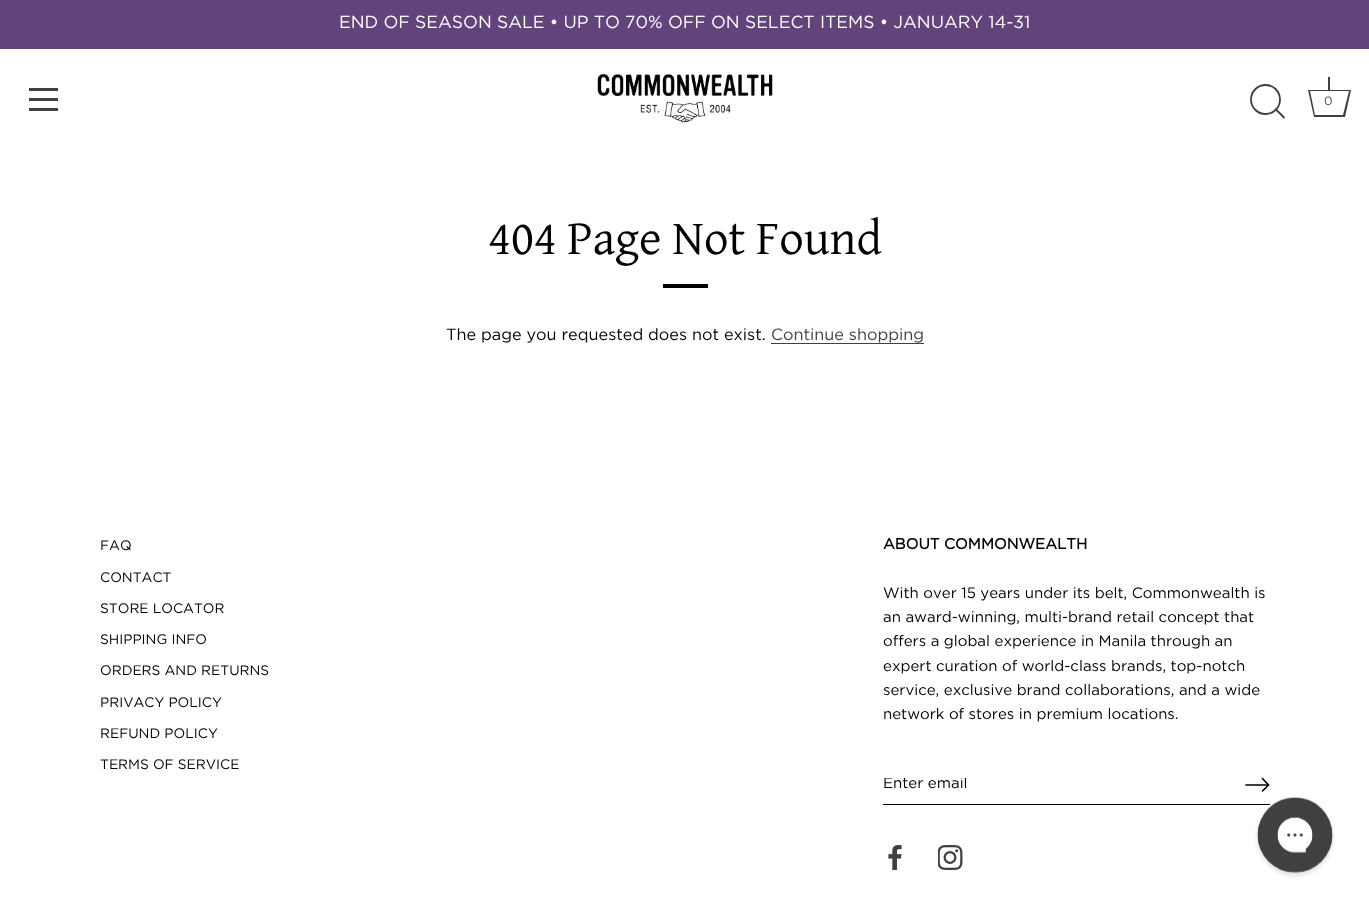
<svg xmlns="http://www.w3.org/2000/svg" xmlns:xlink="http://www.w3.org/1999/xlink" width="1369" height="906" viewBox="0 0 1369 906">
<style>
.cls-1{font:17.5px Gotham;fill:#ffffff}
.cls-2{font:12px Gotham;fill:#423f3f}
.cls-3{font:48.75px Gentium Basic;fill:#000000}
.cls-4{font:16.25px Gotham;fill:#000000}
.cls-5{font:16.25px Gotham;fill:#423f3f}
.cls-6{font:13.75px Gotham;fill:#000000}
.cls-7{font:bold 15px Gotham;fill:#000000}
.cls-8{font:15px Gotham;fill:#000000}
</style>
<defs>
<clipPath id="clip1"><rect x="883" y="778" width="387" height="15"/></clipPath>
</defs>
<rect width="100%" height="100%" fill="#ffffff"/>
<rect fill="#62437b" x="0" y="0" width="1369" height="49"/>
<rect fill="#423f3f" x="29" y="88" width="29" height="3"/>
<rect fill="#423f3f" x="29" y="98" width="29" height="3"/>
<rect fill="#423f3f" x="29" y="108" width="29" height="3"/>
<image xlink:href="image0.png" x="597" y="73" width="176" height="50"/>
<circle fill="none" stroke="#423f3f" stroke-width="1.8" cx="1265.5" cy="99.5" r="14.5"/>
<path fill="none" stroke="#423f3f" stroke-width="1.8" stroke-linecap="round" stroke-linejoin="round" d="M1284 117.5L1276 109.5"/>
<rect fill="#423f3f" x="1328" y="77" width="2" height="13"/>
<path fill="#423f3f" d="M1349 91L1343 115H1315L1310 91H1349M1351 90H1308L1314 117H1345Z"/>
<rect fill="#000000" x="663" y="284" width="45" height="4"/>
<rect fill="#423f3f" x="771" y="343" width="153" height="1"/>
<rect fill="#000000" x="883" y="804" width="387" height="1"/>
<path fill="none" stroke="#000000" stroke-width="1.6" stroke-linecap="round" d="M1262.5 791L1268.5 785L1262.5 778.5"/>
<path fill="none" stroke="#000000" stroke-width="1.6" stroke-linecap="round" stroke-linejoin="round" d="M1268 785H1246"/>
<image xlink:href="image1.png" x="888" y="845" width="14" height="25"/>
<image xlink:href="image2.png" x="938" y="845" width="25" height="25"/>
<image xlink:href="image3.png" x="1255" y="797" width="80" height="81"/>
<text class="cls-1" x="339" y="28">END OF SEASON SALE • UP TO 70% OFF ON SELECT ITEMS • JANUARY 14-31</text>
<text class="cls-2" x="1324" y="105">0</text>
<text class="cls-3" x="488" y="254">404 Page Not Found</text>
<text class="cls-4" x="446" y="340">The page you requested does not exist.</text>
<text class="cls-5" x="771" y="340">Continue shopping</text>
<text class="cls-6" x="100" y="550">FAQ</text>
<text class="cls-6" x="100" y="582">CONTACT</text>
<text class="cls-6" x="100" y="613">STORE LOCATOR</text>
<text class="cls-6" x="100" y="644">SHIPPING INFO</text>
<text class="cls-6" x="100" y="675">ORDERS AND RETURNS</text>
<text class="cls-6" x="100" y="707">PRIVACY POLICY</text>
<text class="cls-6" x="100" y="738">REFUND POLICY</text>
<text class="cls-6" x="100" y="769">TERMS OF SERVICE</text>
<text class="cls-7" x="883" y="549">ABOUT COMMONWEALTH</text>
<text class="cls-8"><tspan x="883" y="598">With over 15 years under its belt, Commonwealth is</tspan><tspan x="883" y="622">an award-winning, multi-brand retail concept that</tspan><tspan x="883" y="646">offers a global experience in Manila through an</tspan><tspan x="883" y="671">expert curation of world-class brands, top-notch</tspan><tspan x="883" y="695">service, exclusive brand collaborations, and a wide</tspan><tspan x="883" y="719">network of stores in premium locations.</tspan></text>
<g clip-path="url(#clip1)">
<text class="cls-8" x="883" y="788">Enter email</text>
</g>
</svg>
